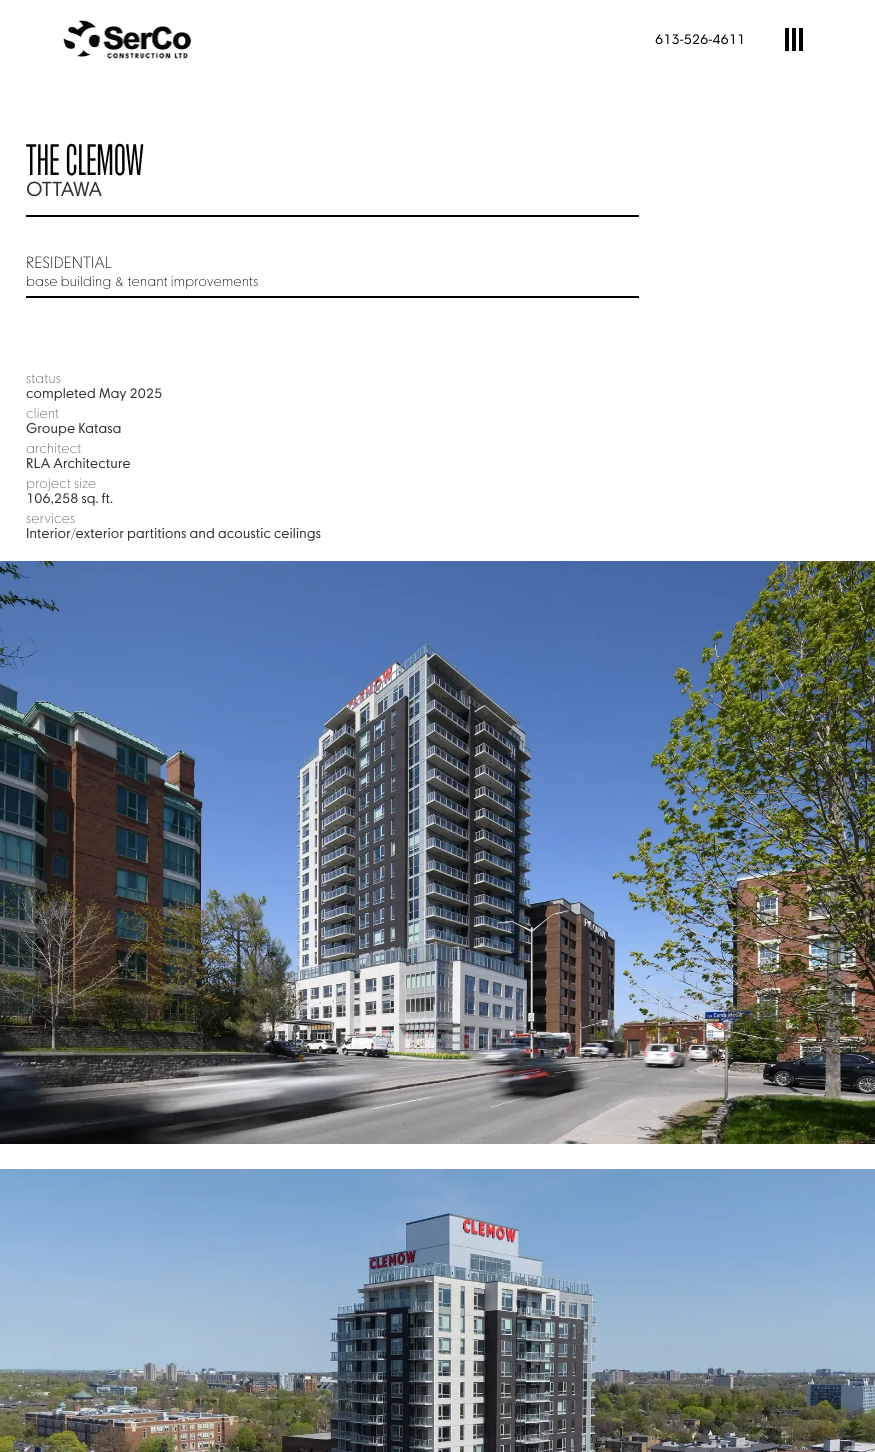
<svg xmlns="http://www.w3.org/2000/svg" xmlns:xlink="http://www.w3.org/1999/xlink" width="875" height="1452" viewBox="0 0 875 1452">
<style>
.cls-1{font:40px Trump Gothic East;fill:#000000}
</style>
<rect width="100%" height="100%" fill="#ffffff"/>
<image xlink:href="image0.png" x="63" y="20" width="129" height="39"/>
<image xlink:href="image1.png" x="655" y="34" width="88" height="11"/>
<rect fill="#000000" x="785" y="28" width="4" height="23"/>
<rect fill="#000000" x="792" y="28" width="4" height="23"/>
<rect fill="#000000" x="799" y="28" width="4" height="23"/>
<image xlink:href="image2.png" x="27" y="181" width="75" height="16"/>
<rect fill="#000000" x="26" y="215" width="613" height="2"/>
<image xlink:href="image3.png" x="27" y="256" width="85" height="13"/>
<image xlink:href="image4.png" x="27" y="276" width="231" height="13"/>
<rect fill="#000000" x="26" y="296" width="613" height="2"/>
<image xlink:href="image5.png" x="26" y="374" width="35" height="10"/>
<image xlink:href="image6.png" x="26" y="388" width="69" height="13"/>
<image xlink:href="image7.png" x="99" y="388" width="63" height="13"/>
<image xlink:href="image8.png" x="26" y="408" width="33" height="11"/>
<image xlink:href="image9.png" x="26" y="422" width="95" height="14"/>
<image xlink:href="image10.png" x="26" y="443" width="55" height="11"/>
<image xlink:href="image11.png" x="27" y="457" width="104" height="12"/>
<image xlink:href="image12.png" x="27" y="478" width="69" height="13"/>
<image xlink:href="image13.png" x="28" y="492" width="85" height="14"/>
<image xlink:href="image14.png" x="26" y="513" width="49" height="11"/>
<image xlink:href="image15.png" x="27" y="527" width="294" height="14"/>
<image xlink:href="image16.png" x="0" y="561" width="875" height="583"/>
<image xlink:href="image17.png" x="0" y="1169" width="875" height="283"/>
<text class="cls-1" x="26" y="175">THE CLEMOW</text>
</svg>
